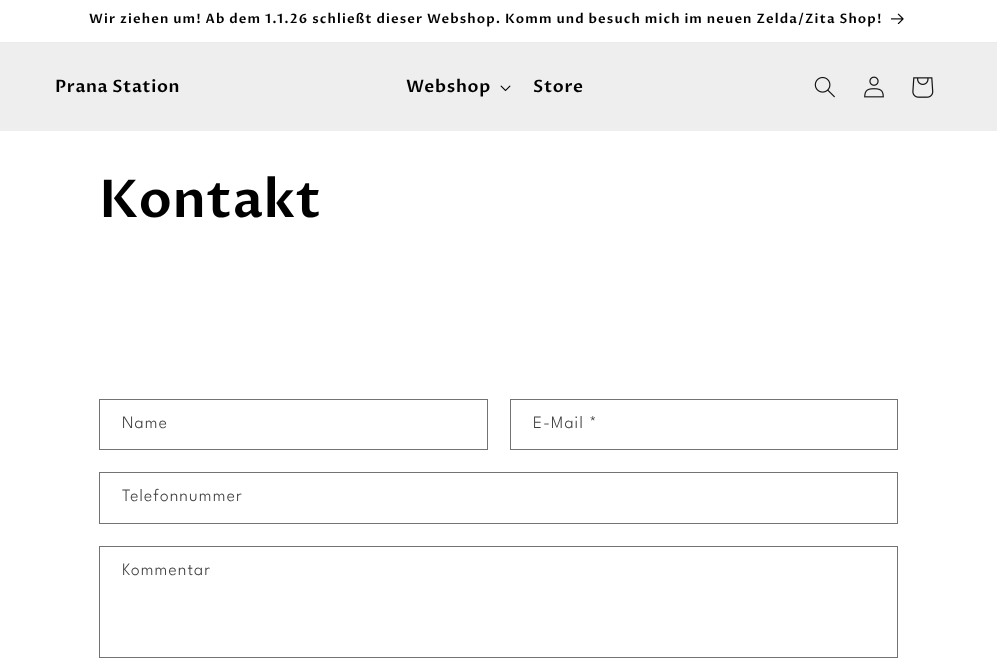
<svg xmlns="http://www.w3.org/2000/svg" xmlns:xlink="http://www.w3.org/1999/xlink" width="997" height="667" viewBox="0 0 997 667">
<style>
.cls-1{font:600 13px Proza Libre;letter-spacing:1.1px;fill:#000000}
.cls-2{font:600 17px Proza Libre;letter-spacing:0.6px;fill:#000000}
.cls-3{font:600 17px Proza Libre;letter-spacing:0.75px;fill:#000000}
.cls-4{font:600 52px Proza Libre;letter-spacing:0.6px;fill:#000000}
.cls-5{font:300 17.5px League Spartan;letter-spacing:1.1px;fill:#404040}
</style>
<rect width="100%" height="100%" fill="#ffffff"/>
<rect fill="#ebebeb" x="0" y="42" width="997" height="1"/>
<image xlink:href="image0.png" x="891" y="13" width="13" height="11"/>
<rect fill="#eeeeee" x="0" y="43" width="997" height="88"/>
<image xlink:href="image1.png" x="500" y="85" width="11" height="6"/>
<image xlink:href="image2.png" x="814" y="76" width="21" height="22"/>
<image xlink:href="image3.png" x="864" y="76" width="20" height="22"/>
<image xlink:href="image4.png" x="912" y="77" width="22" height="21"/>
<rect fill="none" stroke="#737373" x="99.5" y="399.5" width="388" height="50"/>
<rect fill="none" stroke="#737373" x="510.5" y="399.5" width="387" height="50"/>
<rect fill="none" stroke="#737373" x="99.5" y="472.5" width="798" height="51"/>
<rect fill="none" stroke="#737373" x="99.5" y="546.5" width="798" height="111"/>
<text class="cls-1" x="89" y="23">Wir ziehen um! Ab dem 1.1.26 schließt dieser Webshop. Komm und besuch mich im neuen Zelda/Zita Shop!</text>
<text class="cls-2" x="55" y="92">Prana Station</text>
<text class="cls-3" x="406" y="92">Webshop</text>
<text class="cls-3" x="533" y="92">Store</text>
<text class="cls-4" x="99" y="217">Kontakt</text>
<text class="cls-5" x="122" y="428">Name</text>
<text class="cls-5" x="533" y="428">E-Mail *</text>
<text class="cls-5" x="122" y="501">Telefonnummer</text>
<text class="cls-5" x="122" y="575">Kommentar</text>
</svg>
